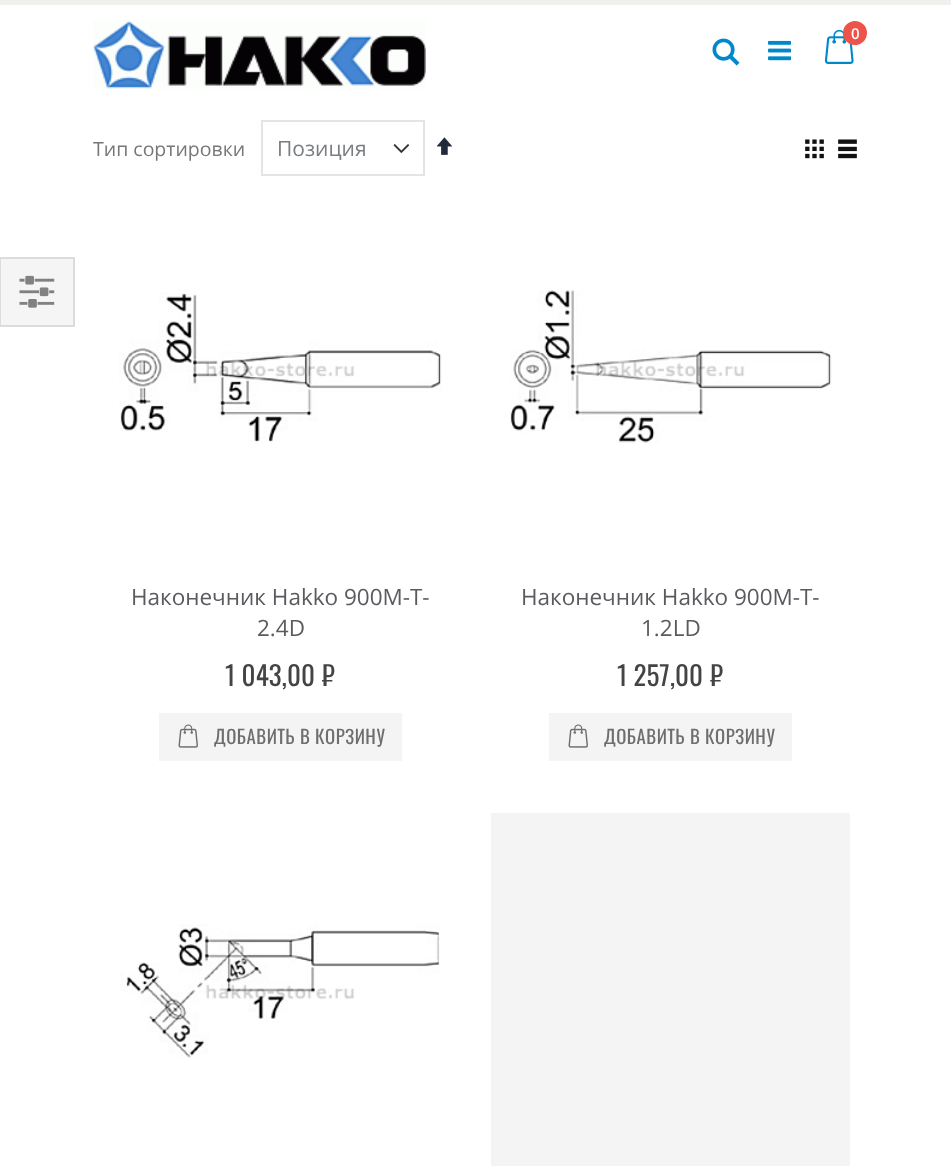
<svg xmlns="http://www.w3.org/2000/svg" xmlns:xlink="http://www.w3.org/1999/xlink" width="951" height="1166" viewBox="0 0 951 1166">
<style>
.cls-1{font:600 15px Open Sans;fill:#ffffff}
.cls-2{font:19.5px Open Sans;fill:#777777}
.cls-3{font:21px Open Sans;fill:#7a7d82}
.cls-4{font:22.5px Open Sans;fill:#5b5b5f}
.cls-5{font:27px Oswald;letter-spacing:0.1px;fill:#444444}
.cls-6{font:18.75px Oswald;letter-spacing:0.5px;fill:#6f6e6c}
</style>
<rect width="100%" height="100%" fill="#ffffff"/>
<rect fill="#f0f0ed" x="0" y="0" width="951" height="5"/>
<image xlink:href="image0.png" x="93" y="20" width="333" height="69"/>
<image xlink:href="image1.png" x="824" y="29" width="30" height="35"/>
<circle fill="#ed5348" cx="855" cy="33" r="12"/>
<image xlink:href="image2.png" x="712" y="38" width="28" height="28"/>
<image xlink:href="image3.png" x="768" y="40" width="23" height="21"/>
<rect fill="#f5f5f5" stroke="#dcdcda" stroke-width="2" x="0" y="258" width="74" height="68"/>
<image xlink:href="image4.png" x="19" y="275" width="36" height="33"/>
<image xlink:href="image5.png" x="393" y="143" width="17" height="11"/>
<rect fill="none" stroke="#e4e4e4" stroke-width="2" x="262" y="121" width="162" height="54"/>
<image xlink:href="image6.png" x="437" y="137" width="15" height="18"/>
<image xlink:href="image7.png" x="805" y="139" width="19" height="20"/>
<image xlink:href="image8.png" x="838" y="139" width="19" height="20"/>
<image xlink:href="image9.png" x="119" y="293" width="323" height="149"/>
<rect fill="#f4f4f4" x="159" y="713" width="243" height="48"/>
<image xlink:href="image10.png" x="178" y="724" width="20" height="24"/>
<image xlink:href="image11.png" x="510" y="290" width="322" height="153"/>
<rect fill="#f4f4f4" x="549" y="713" width="243" height="48"/>
<image xlink:href="image10.png" x="568" y="724" width="20" height="24"/>
<image xlink:href="image12.png" x="120" y="924" width="320" height="134"/>
<rect fill="#f4f4f4" x="491" y="813" width="359" height="353"/>
<text class="cls-1" x="851" y="39">0</text>
<text class="cls-2" x="93" y="156">Тип сортировки</text>
<text class="cls-3" x="277" y="156">Позиция</text>
<text class="cls-4" x="131" y="605">Наконечник Hakko 900M-T-</text>
<text class="cls-4" x="257" y="636">2.4D</text>
<text class="cls-5" x="225" y="686">1 043,00 ₽</text>
<text class="cls-6" x="214" y="744">ДОБАВИТЬ В КОРЗИНУ</text>
<text class="cls-4" x="521" y="605">Наконечник Hakko 900M-T-</text>
<text class="cls-4" x="641" y="636">1.2LD</text>
<text class="cls-5" x="617" y="686">1 257,00 ₽</text>
<text class="cls-6" x="604" y="744">ДОБАВИТЬ В КОРЗИНУ</text>
</svg>
